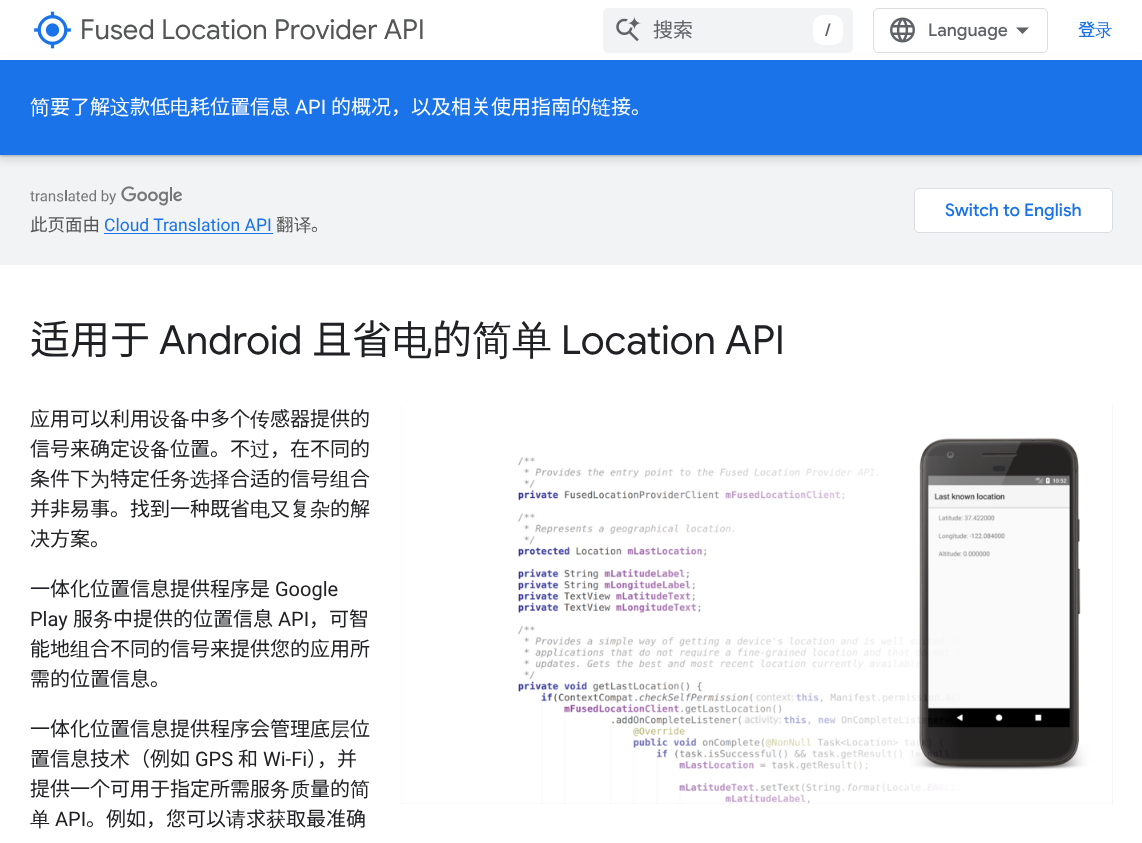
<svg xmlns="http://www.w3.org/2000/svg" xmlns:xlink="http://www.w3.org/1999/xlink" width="1142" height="843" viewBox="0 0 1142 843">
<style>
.cls-1{font:27.5px Google Sans;fill:#545555}
.cls-2{font:20px Noto Sans JP;fill:#5f6368}
.cls-3{font:500 17.5px Google Sans;fill:#5f6368}
.cls-4{font:500 17.5px Noto Sans JP;fill:#1a73e8}
.cls-5{font:500 17.5px WenQuanYi Zen Hei;fill:#1a73e8}
.cls-6{font:500 20px WenQuanYi Zen Hei;fill:#ffffff}
.cls-7{font:20px Noto Sans JP;fill:#ffffff}
.cls-8{font:20px Roboto;fill:#ffffff}
.cls-9{font:500 17.5px Google Sans;fill:#1a73e8}
.cls-10{font:17.5px Noto Sans JP;fill:#545555}
.cls-11{font:17.5px Roboto;fill:#1a73e8}
.cls-12{font:500 17.5px WenQuanYi Zen Hei;fill:#545555}
.cls-13{font:40px Noto Sans JP;fill:#202124}
.cls-14{font:40px Google Sans;fill:#202124}
.cls-15{font:500 40px WenQuanYi Zen Hei;fill:#202124}
.cls-16{font:500 20px WenQuanYi Zen Hei;fill:#202124}
.cls-17{font:20px Noto Sans JP;fill:#202124}
.cls-18{font:20px Roboto;fill:#202124}
</style>
<rect width="100%" height="100%" fill="#ffffff"/>
<rect fill="#f1f3f4" x="0" y="155" width="1142" height="110"/>
<rect fill="#3c4043" fill-opacity="0.15" filter="blur(4px)" x="-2" y="60" width="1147" height="100"/>
<rect fill="#3c4043" fill-opacity="0.3" filter="blur(1px)" x="0" y="61" width="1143" height="95"/>
<rect fill="#ffffff" x="0" y="55" width="1142" height="5"/>
<image xlink:href="image0.png" x="34" y="11" width="37" height="38"/>
<rect fill="#f1f3f4" x="603" y="8" width="250" height="45" rx="5"/>
<image xlink:href="image1.png" x="616" y="16" width="25" height="26"/>
<rect fill="#ffffff" x="813" y="15" width="30" height="30" rx="10"/>
<rect fill="none" stroke="#dadce0" x="873.5" y="8.5" width="174" height="44" rx="4.5"/>
<image xlink:href="image2.png" x="890" y="17" width="25" height="26"/>
<path fill="#5f6368" d="M1022.5 34L1016 27.5H1029Z"/>
<rect fill="#1a73e8" x="0" y="60" width="1142" height="95"/>
<rect fill="#ffffff" stroke="#dadce0" x="914.5" y="188.5" width="198" height="44" rx="4.5"/>
<image xlink:href="image3.png" x="30" y="186" width="153" height="20"/>
<rect fill="#1a73e8" x="104" y="233" width="169" height="1"/>
<rect fill="#e8eaed" x="401" y="405" width="712" height="399"/>
<image xlink:href="image4.png" x="401" y="405" width="712" height="399"/>
<text class="cls-1" x="80" y="39">Fused Location Provider API</text>
<text class="cls-2" x="653" y="37">搜索</text>
<text class="cls-3" x="825" y="36">/</text>
<text class="cls-3" x="928" y="36">Language</text>
<text class="cls-4" x="1078" y="36">登</text>
<text class="cls-5" x="1095" y="36">录</text>
<text class="cls-6" x="30" y="114">简</text>
<text class="cls-7" x="50" y="114">要了解</text>
<text class="cls-6" x="110" y="114">这</text>
<text class="cls-7" x="130" y="114">款低</text>
<text class="cls-6" x="170" y="114">电</text>
<text class="cls-7" x="190" y="114">耗位置信息</text>
<text class="cls-8" x="295" y="114">API</text>
<text class="cls-7" x="331" y="114">的概况，以及相关使用指南的</text>
<text class="cls-6" x="591" y="114">链</text>
<text class="cls-7" x="611" y="114">接。</text>
<text class="cls-9" x="945" y="216">Switch to English</text>
<text class="cls-10" x="30" y="231">此页面由</text>
<text class="cls-11" x="104" y="231">Cloud Translation API</text>
<text class="cls-10" x="276" y="231">翻</text>
<text class="cls-12" x="294" y="231">译</text>
<text class="cls-10" x="311" y="231">。</text>
<text class="cls-13" x="30" y="354">适用于</text>
<text class="cls-14" x="159" y="354">Android</text>
<text class="cls-13" x="312" y="354">且省</text>
<text class="cls-15" x="392" y="354">电</text>
<text class="cls-13" x="432" y="354">的</text>
<text class="cls-15" x="472" y="354">简单</text>
<text class="cls-14" x="561" y="354">Location API</text>
<text class="cls-16" x="30" y="426">应</text>
<text class="cls-17" x="50" y="426">用可以利用</text>
<text class="cls-16" x="150" y="426">设备</text>
<text class="cls-17" x="190" y="426">中多个</text>
<text class="cls-16" x="250" y="426">传</text>
<text class="cls-17" x="270" y="426">感器提供的</text>
<text class="cls-17" x="30" y="456">信号来确定</text>
<text class="cls-16" x="130" y="456">设备</text>
<text class="cls-17" x="170" y="456">位置。不</text>
<text class="cls-16" x="250" y="456">过</text>
<text class="cls-17" x="270" y="456">，在不同的</text>
<text class="cls-17" x="30" y="486">条件下</text>
<text class="cls-16" x="90" y="486">为</text>
<text class="cls-17" x="110" y="486">特定任</text>
<text class="cls-16" x="170" y="486">务选择</text>
<text class="cls-17" x="230" y="486">合适的信号</text>
<text class="cls-16" x="330" y="486">组</text>
<text class="cls-17" x="350" y="486">合</text>
<text class="cls-17" x="30" y="516">并非易事。找到一种既省</text>
<text class="cls-16" x="250" y="516">电</text>
<text class="cls-17" x="270" y="516">又复</text>
<text class="cls-16" x="310" y="516">杂</text>
<text class="cls-17" x="330" y="516">的解</text>
<text class="cls-17" x="30" y="546">决方案。</text>
<text class="cls-17" x="30" y="596">一体化位置信息提供程序是</text>
<text class="cls-18" x="275" y="596">Google</text>
<text class="cls-18" x="30" y="626">Play</text>
<text class="cls-17" x="73" y="626">服</text>
<text class="cls-16" x="93" y="626">务</text>
<text class="cls-17" x="113" y="626">中提供的位置信息</text>
<text class="cls-18" x="278" y="626">API</text>
<text class="cls-17" x="309" y="626">，可智</text>
<text class="cls-17" x="30" y="656">能地</text>
<text class="cls-16" x="70" y="656">组</text>
<text class="cls-17" x="90" y="656">合不同的信号来提供您的</text>
<text class="cls-16" x="310" y="656">应</text>
<text class="cls-17" x="330" y="656">用所</text>
<text class="cls-17" x="30" y="686">需的位置信息。</text>
<text class="cls-17" x="30" y="736">一体化位置信息提供程序会管理底</text>
<text class="cls-16" x="330" y="736">层</text>
<text class="cls-17" x="350" y="736">位</text>
<text class="cls-17" x="30" y="766">置信息技</text>
<text class="cls-16" x="110" y="766">术</text>
<text class="cls-17" x="130" y="766">（例如</text>
<text class="cls-18" x="195" y="766">GPS</text>
<text class="cls-17" x="238" y="766">和</text>
<text class="cls-18" x="263" y="766">Wi-Fi</text>
<text class="cls-17" x="307" y="766">），并</text>
<text class="cls-17" x="30" y="796">提供一个可用于指定所需服</text>
<text class="cls-16" x="270" y="796">务质</text>
<text class="cls-17" x="310" y="796">量的</text>
<text class="cls-16" x="350" y="796">简</text>
<text class="cls-16" x="30" y="826">单</text>
<text class="cls-18" x="55" y="826">API</text>
<text class="cls-17" x="86" y="826">。例如，您可以</text>
<text class="cls-16" x="226" y="826">请</text>
<text class="cls-17" x="246" y="826">求</text>
<text class="cls-16" x="266" y="826">获</text>
<text class="cls-17" x="286" y="826">取最准确</text>
</svg>
